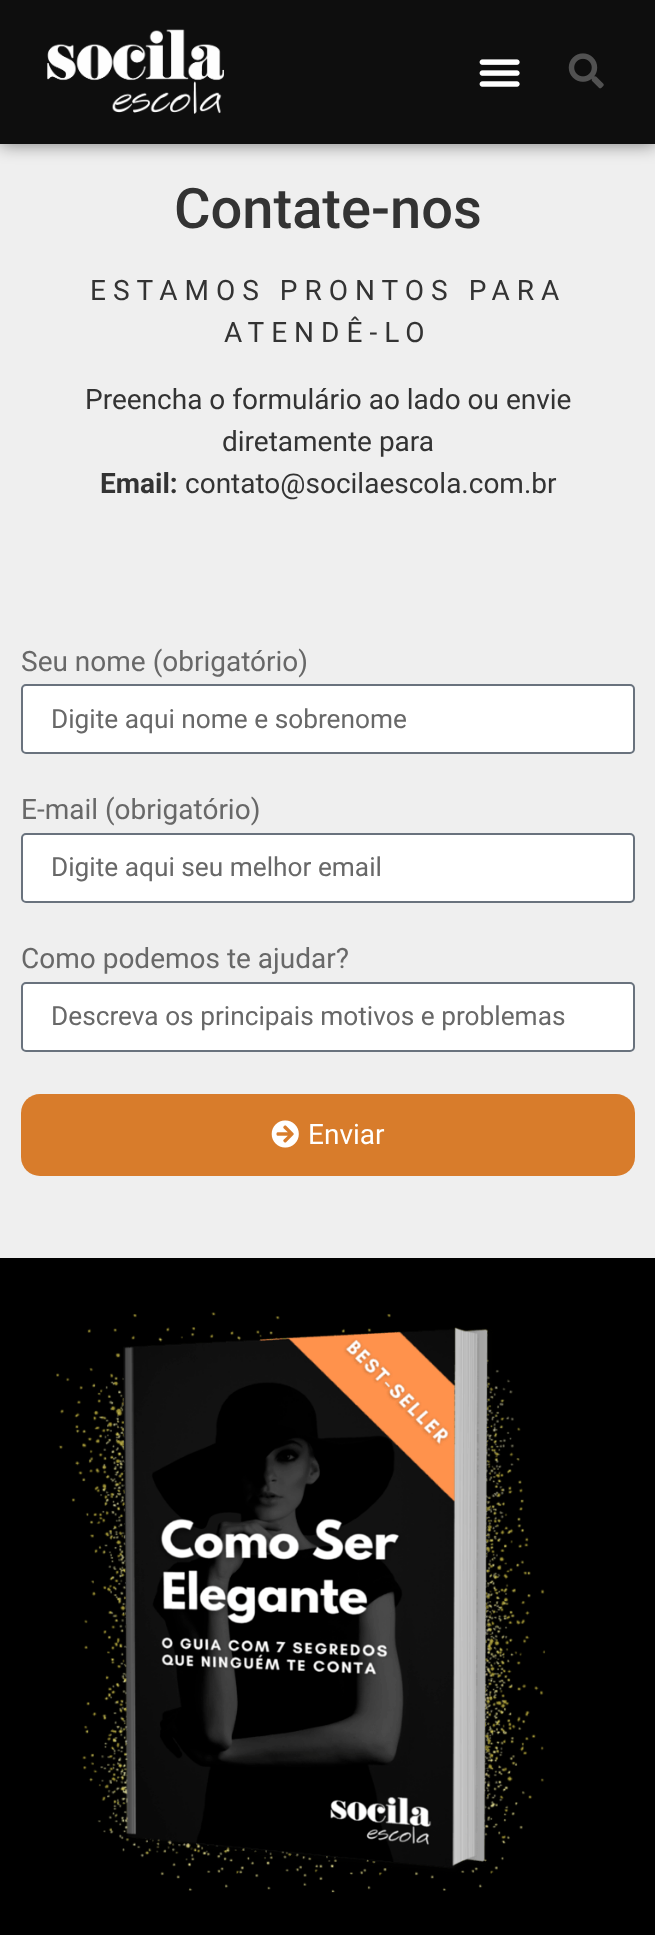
<svg xmlns="http://www.w3.org/2000/svg" xmlns:xlink="http://www.w3.org/1999/xlink" width="655" height="1935" viewBox="0 0 655 1935">
<style>
.cls-1{font:500 56px Roboto;fill:#333333}
.cls-2{font:28px Roboto;letter-spacing:7px;fill:#333333}
.cls-3{font:28px Roboto;fill:#333333}
.cls-4{font:bold 28px Roboto;fill:#333333}
.cls-5{font:28px Roboto;fill:#686868}
.cls-6{font:26.25px Roboto;fill:#686868}
.cls-7{font:28px Roboto;fill:#ffffff}
</style>
<defs>
<clipPath id="clip1"><path d="M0 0H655V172H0ZM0 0H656V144H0Z" clip-rule="evenodd"/></clipPath>
</defs>
<rect width="100%" height="100%" fill="#efefef"/>
<g clip-path="url(#clip1)">
<rect fill="#000000" fill-opacity="0.5" filter="blur(9px)" x="0" y="0" width="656" height="144"/>
</g>
<rect fill="#000000" fill-opacity="0.94" x="0" y="0" width="655" height="144"/>
<image xlink:href="image0.png" x="47" y="29" width="177" height="85"/>
<image xlink:href="image1.png" x="479" y="59" width="41" height="28"/>
<image xlink:href="image2.png" x="568" y="53" width="36" height="36"/>
<rect fill="#ffffff" stroke="#69727d" stroke-width="2" x="22" y="685" width="612" height="68" rx="4"/>
<rect fill="#ffffff" stroke="#69727d" stroke-width="2" x="22" y="834" width="612" height="68" rx="4"/>
<rect fill="#ffffff" stroke="#69727d" stroke-width="2" x="22" y="983" width="612" height="68" rx="4"/>
<rect fill="#d87c2b" x="21" y="1094" width="614" height="82" rx="19"/>
<image xlink:href="image3.png" x="271" y="1120" width="28" height="28"/>
<rect fill="#000000" x="0" y="1258" width="655" height="677"/>
<image xlink:href="image4.png" x="56" y="1312" width="490" height="581"/>
<text class="cls-1" x="174" y="228">Contate-nos</text>
<text class="cls-2" x="90" y="300">ESTAMOS PRONTOS PARA</text>
<text class="cls-2" x="224" y="342">ATENDÊ-LO</text>
<text class="cls-3" x="85" y="409">Preencha o formulário ao lado ou envie</text>
<text class="cls-3" x="222" y="451">diretamente para</text>
<text class="cls-4" x="100" y="493">Email:</text>
<text class="cls-3" x="185" y="493">contato@socilaescola.com.br</text>
<text class="cls-5" x="21" y="671">Seu nome (obrigatório)</text>
<text class="cls-6" x="51" y="728">Digite aqui nome e sobrenome</text>
<text class="cls-5" x="21" y="819">E-mail (obrigatório)</text>
<text class="cls-6" x="51" y="876">Digite aqui seu melhor email</text>
<text class="cls-5" x="21" y="968">Como podemos te ajudar?</text>
<text class="cls-6" x="51" y="1025">Descreva os principais motivos e problemas</text>
<text class="cls-7" x="308" y="1144">Enviar</text>
</svg>
